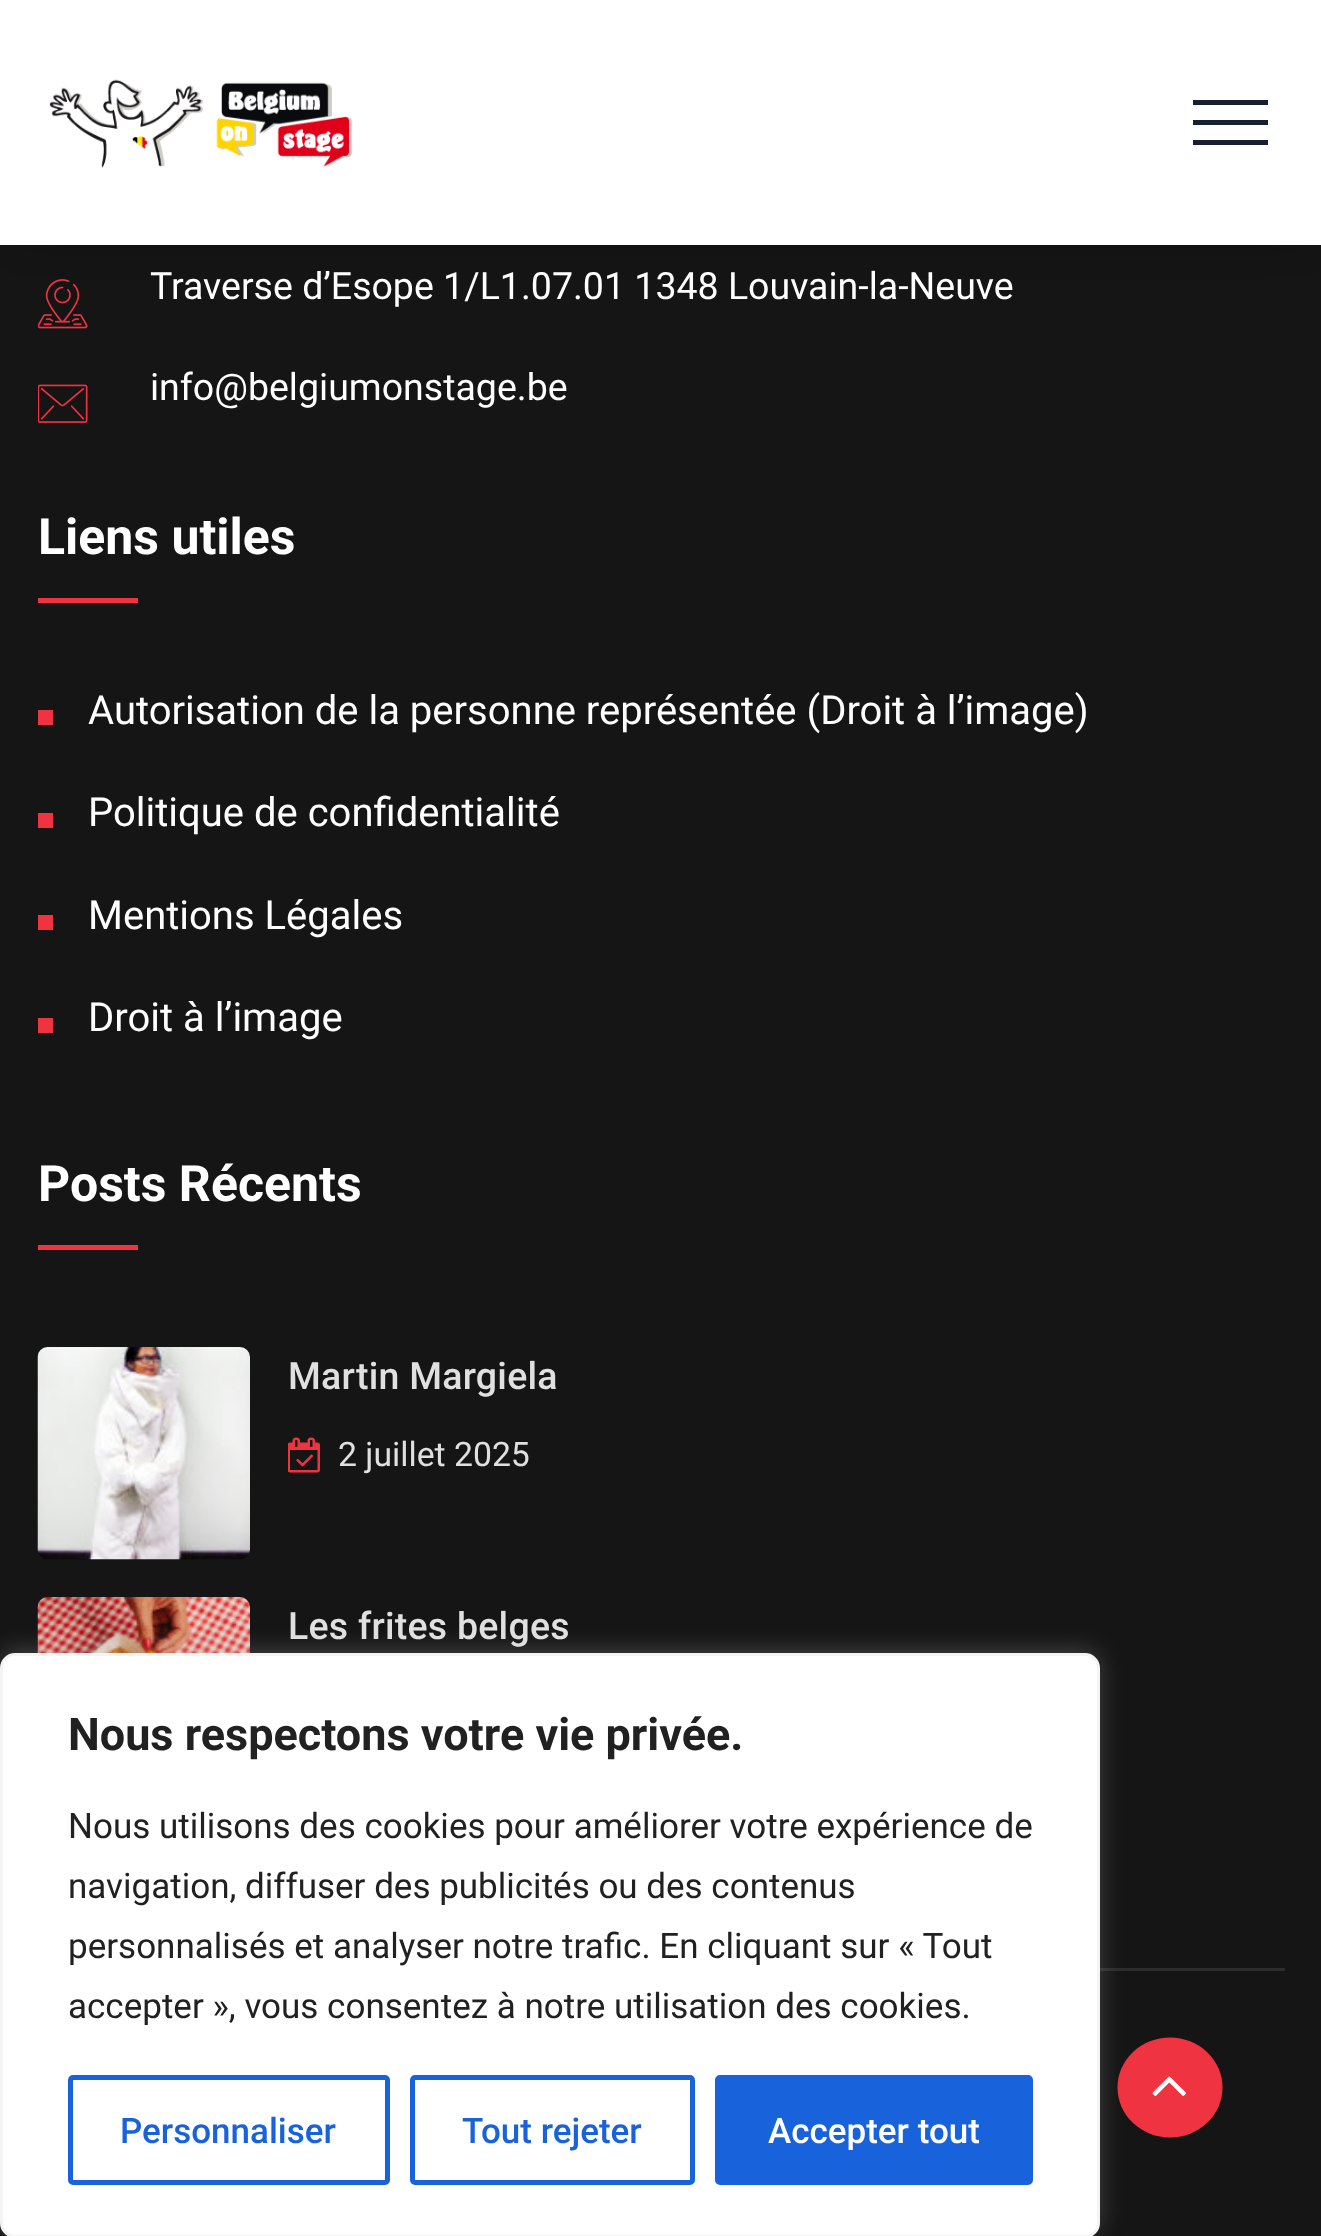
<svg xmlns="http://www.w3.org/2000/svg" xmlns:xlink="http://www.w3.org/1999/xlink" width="1321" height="2236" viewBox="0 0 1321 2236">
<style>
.cls-1{font:37.5px Roboto;fill:#ffffff}
.cls-2{font:bold 50px Roboto;fill:#ffffff}
.cls-3{font:40px Roboto;fill:#ffffff}
.cls-4{font:500 37.5px Roboto;letter-spacing:0.25px;fill:#e0e0e0}
.cls-5{font:33.75px Roboto;fill:#e0e0e0}
.cls-6{font:bold 45px Roboto;fill:#212121}
.cls-7{font:35px Roboto;fill:#212121}
.cls-8{font:500 35px Roboto;fill:#1863dc}
.cls-9{font:500 35px Roboto;fill:#ffffff}
</style>
<rect width="100%" height="100%" fill="#151515"/>
<image xlink:href="image1.png" x="38" y="279" width="50" height="50"/>
<rect fill="#000000" fill-opacity="0.8" filter="blur(25px)" x="25" y="25" width="1273" height="195"/>
<rect fill="#ffffff" x="0" y="0" width="1321" height="245"/>
<image xlink:href="image0.png" x="50" y="79" width="303" height="89"/>
<rect fill="#171f32" x="1193" y="100" width="75" height="5"/>
<rect fill="#171f32" x="1193" y="120" width="75" height="5"/>
<rect fill="#171f32" x="1193" y="140" width="75" height="5"/>
<image xlink:href="image2.png" x="38" y="384" width="50" height="39"/>
<rect fill="#ef3340" x="38" y="598" width="100" height="5"/>
<rect fill="#ef3340" x="38" y="710" width="15" height="15"/>
<rect fill="#ef3340" x="38" y="813" width="15" height="15"/>
<rect fill="#ef3340" x="38" y="915" width="15" height="15"/>
<rect fill="#ef3340" x="38" y="1018" width="15" height="15"/>
<rect fill="#ef3340" x="38" y="1245" width="100" height="5"/>
<image xlink:href="image3.png" x="37" y="1347" width="213" height="213"/>
<image xlink:href="image4.png" x="288" y="1437" width="32" height="36"/>
<image xlink:href="image5.png" x="37" y="1597" width="213" height="56"/>
<rect fill="#2c2c2c" x="1100" y="1968" width="185" height="3"/>
<ellipse fill="#ef3340" cx="1170" cy="2087.5" rx="52.5" ry="50"/>
<rect fill="#acabab" fill-opacity="0.3" filter="blur(12.5px)" x="0" y="1650" width="1100" height="585" rx="15"/>
<rect fill="#ffffff" stroke="#f4f4f4" stroke-width="3" x="1.5" y="1654.5" width="1097" height="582" rx="13.5"/>
<rect fill="none" stroke="#1863dc" stroke-width="5" x="70.5" y="2077.5" width="317" height="105" rx="2.5"/>
<rect fill="none" stroke="#1863dc" stroke-width="5" x="412.5" y="2077.5" width="280" height="105" rx="2.5"/>
<rect fill="#1863dc" stroke="#1863dc" stroke-width="5" x="717.5" y="2077.5" width="313" height="105" rx="2.5"/>
<image xlink:href="image6.png" x="1152" y="2076" width="34" height="20"/>
<text class="cls-1" x="150" y="299">Traverse d’Esope 1/L1.07.01 1348 Louvain-la-Neuve</text>
<text class="cls-1" x="150" y="400">info@belgiumonstage.be</text>
<text class="cls-2" x="38" y="554">Liens utiles</text>
<text class="cls-3" x="88" y="724">Autorisation de la personne représentée (Droit à l’image)</text>
<text class="cls-3" x="88" y="826">Politique de confidentialité</text>
<text class="cls-3" x="88" y="929">Mentions Légales</text>
<text class="cls-3" x="88" y="1031">Droit à l’image</text>
<text class="cls-2" x="38" y="1201">Posts Récents</text>
<text class="cls-4" x="288" y="1389">Martin Margiela</text>
<text class="cls-5" x="338" y="1466">2 juillet 2025</text>
<text class="cls-4" x="288" y="1639">Les frites belges</text>
<text class="cls-6" x="68" y="1750">Nous respectons votre vie privée.</text>
<text class="cls-7"><tspan x="68" y="1838">Nous utilisons des cookies pour améliorer votre expérience de</tspan><tspan x="68" y="1898">navigation, diffuser des publicités ou des contenus</tspan><tspan x="68" y="1958">personnalisés et analyser notre trafic. En cliquant sur « Tout</tspan><tspan x="68" y="2018">accepter », vous consentez à notre utilisation des cookies.</tspan></text>
<text class="cls-8" x="120" y="2143">Personnaliser</text>
<text class="cls-8" x="462" y="2143">Tout rejeter</text>
<text class="cls-9" x="768" y="2143">Accepter tout</text>
</svg>
